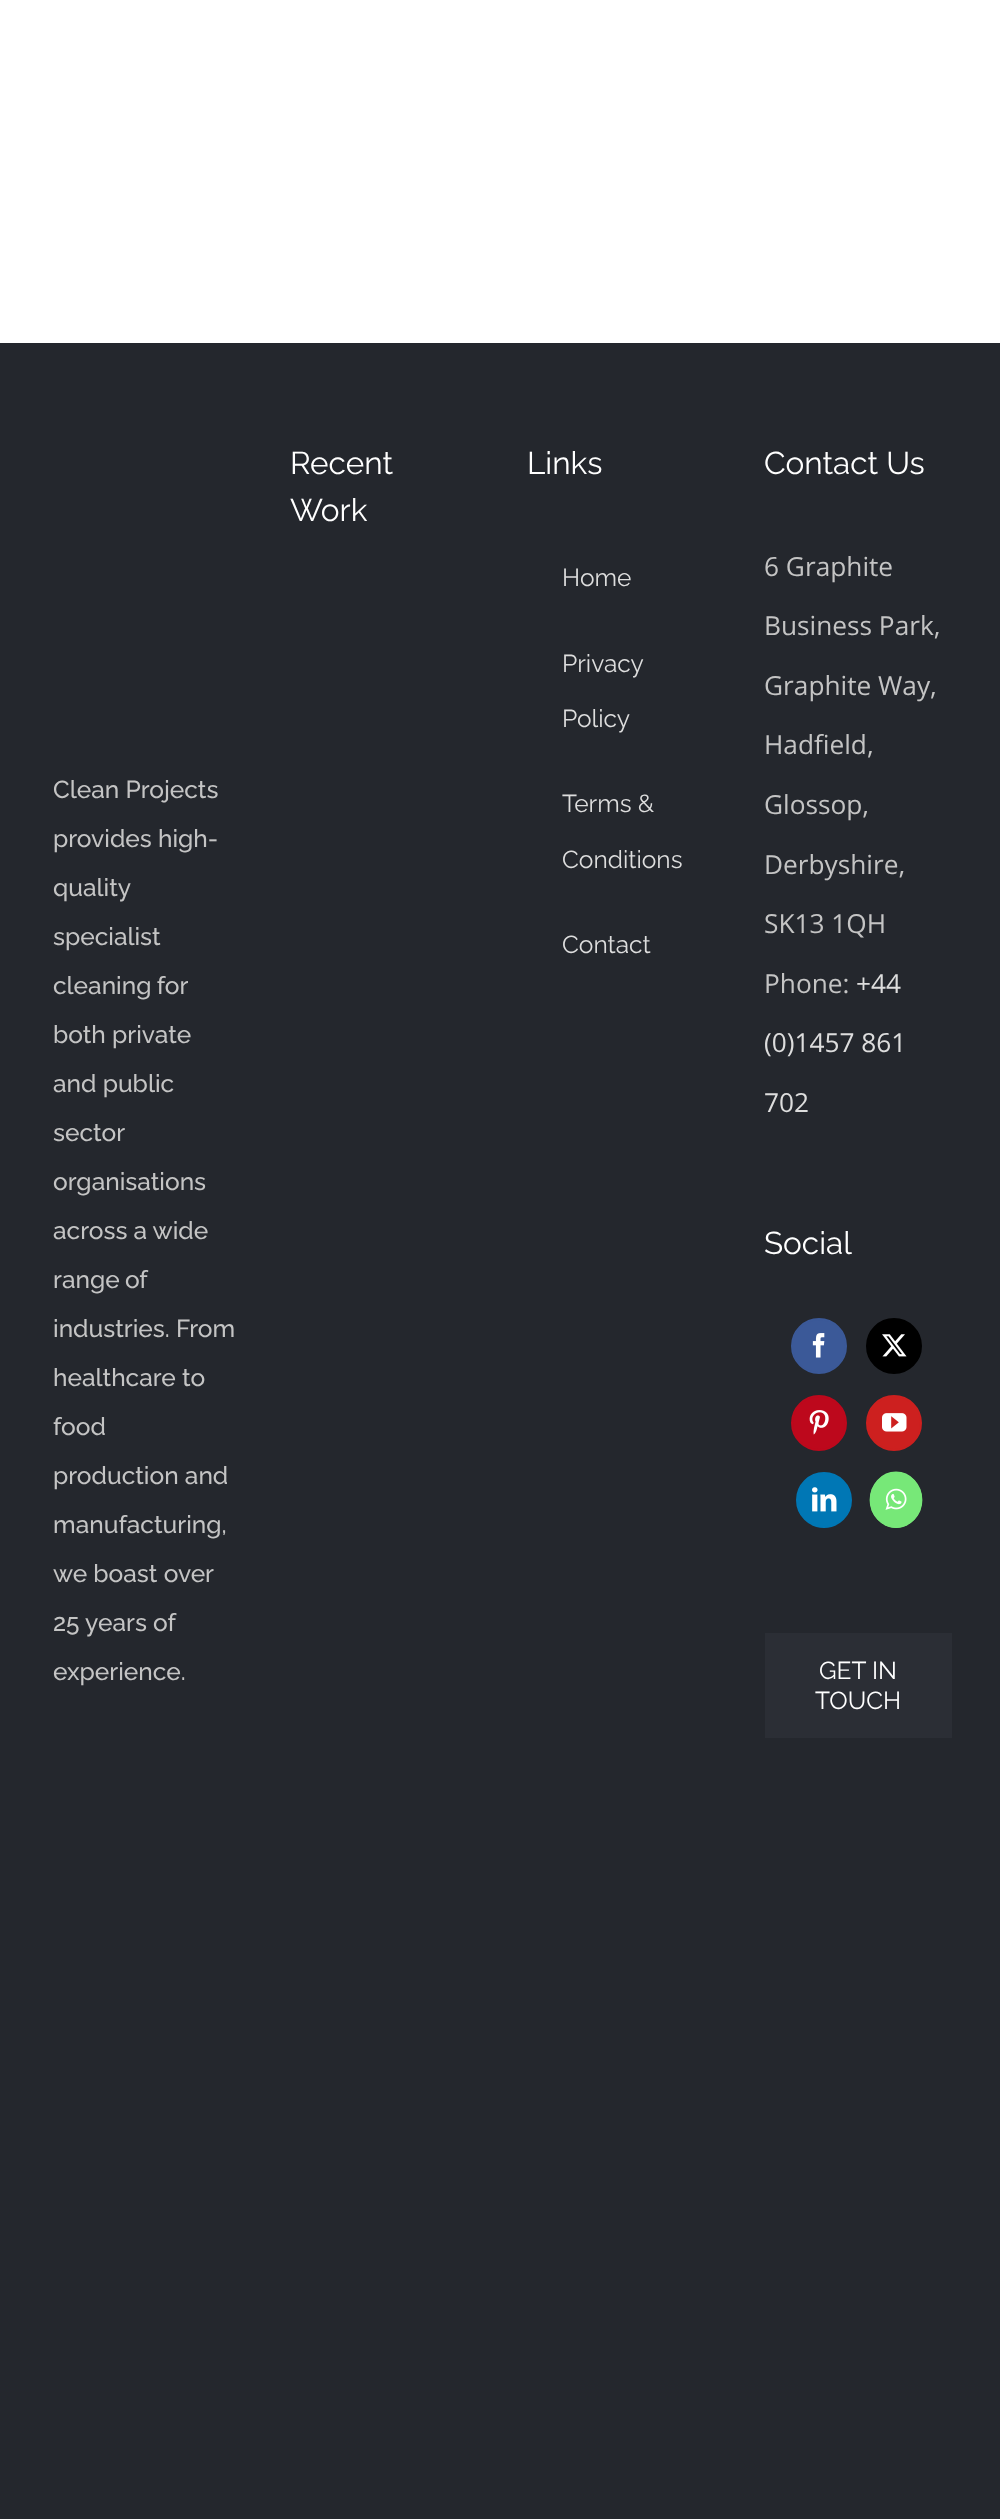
<svg xmlns="http://www.w3.org/2000/svg" xmlns:xlink="http://www.w3.org/1999/xlink" width="1000" height="2519" viewBox="0 0 1000 2519">
<style>
.cls-1{font:500 24.5px Raleway;fill:#c4c4c4}
.cls-2{font:31.5px Raleway;fill:#ffffff}
.cls-3{font:24.5px Raleway;fill:#dddddd}
.cls-4{font:26.25px Open Sans;fill:#c4c4c4}
.cls-5{font:26.25px Open Sans;fill:#dddddd}
.cls-6{font:24.5px Raleway;fill:#ffffff}
</style>
<rect width="100%" height="100%" fill="#ffffff"/>
<rect fill="#24272d" x="0" y="343" width="1000" height="2176"/>
<circle fill="#3b5998" stroke="#3b5998" stroke-width="2" cx="819" cy="1346" r="27"/>
<image xlink:href="image0.png" x="812" y="1333" width="13" height="25"/>
<circle fill="#000000" stroke="#000000" stroke-width="2" cx="894" cy="1346" r="27"/>
<image xlink:href="image1.png" x="882" y="1334" width="25" height="23"/>
<circle fill="#bd081c" stroke="#bd081c" stroke-width="2" cx="819" cy="1423" r="27"/>
<image xlink:href="image2.png" x="809" y="1410" width="20" height="25"/>
<circle fill="#cd201f" stroke="#cd201f" stroke-width="2" cx="894" cy="1423" r="27"/>
<image xlink:href="image3.png" x="882" y="1413" width="25" height="19"/>
<circle fill="#0077b5" stroke="#0077b5" stroke-width="2" cx="824" cy="1500" r="27"/>
<image xlink:href="image4.png" x="812" y="1487" width="25" height="25"/>
<ellipse fill="#77e878" cx="896" cy="1500" rx="26" ry="28"/>
<path fill="none" stroke="#77e878" stroke-width="1.8" d="M896 1472.5C910 1472.5 921.5 1485 921.5 1500C921.5 1514.5 910 1527 896 1527C882 1527 870.5 1514.5 870.5 1500C870.5 1485 882 1472.5 896 1472.5Z"/>
<image xlink:href="image5.png" x="885" y="1488" width="22" height="22"/>
<rect fill="#2b2e35" x="765" y="1633" width="187" height="105"/>
<text class="cls-1" x="53" y="798">Clean Projects</text>
<text class="cls-1" x="53" y="847">provides high-</text>
<text class="cls-1" x="53" y="896">quality</text>
<text class="cls-1" x="53" y="945">specialist</text>
<text class="cls-1" x="53" y="994" word-spacing="-1">cleaning for</text>
<text class="cls-1" x="53" y="1043">both private</text>
<text class="cls-1" x="53" y="1092">and public</text>
<text class="cls-1" x="53" y="1141">sector</text>
<text class="cls-1" x="53" y="1190">organisations</text>
<text class="cls-1" x="53" y="1239">across a wide</text>
<text class="cls-1" x="53" y="1288" word-spacing="-1">range of</text>
<text class="cls-1" x="53" y="1337">industries. From</text>
<text class="cls-1" x="53" y="1386">healthcare to</text>
<text class="cls-1" x="53" y="1435">food</text>
<text class="cls-1" x="53" y="1484">production and</text>
<text class="cls-1" x="53" y="1533">manufacturing,</text>
<text class="cls-1" x="53" y="1582">we boast over</text>
<text class="cls-1" x="53" y="1631">25 years of</text>
<text class="cls-1" x="53" y="1680">experience.</text>
<text class="cls-2"><tspan x="290" y="474">Recent</tspan><tspan x="290" y="521">Work</tspan></text>
<text class="cls-2" x="527" y="474">Links</text>
<text class="cls-3" x="562" y="586">Home</text>
<text class="cls-3" x="562" y="672">Privacy</text>
<text class="cls-3" x="562" y="727">Policy</text>
<text class="cls-3" x="562" y="812">Terms &amp;</text>
<text class="cls-3" x="562" y="868">Conditions</text>
<text class="cls-3" x="562" y="953">Contact</text>
<text class="cls-2" x="764" y="474">Contact Us</text>
<text class="cls-4" x="764" y="576">6 Graphite</text>
<text class="cls-4" x="764" y="635">Business Park,</text>
<text class="cls-4" x="764" y="695">Graphite Way,</text>
<text class="cls-4" x="764" y="754">Hadfield,</text>
<text class="cls-4" x="764" y="814">Glossop,</text>
<text class="cls-4" x="764" y="874">Derbyshire,</text>
<text class="cls-4" x="764" y="933">SK13 1QH</text>
<text class="cls-4" x="764" y="993">Phone:</text>
<text class="cls-5" x="856" y="993">+44</text>
<text class="cls-5" x="764" y="1052">(0)1457 861</text>
<text class="cls-5" x="764" y="1112">702</text>
<text class="cls-2" x="764" y="1254">Social</text>
<text class="cls-6" x="819" y="1679">GET IN</text>
<text class="cls-6" x="815" y="1709">TOUCH</text>
</svg>
